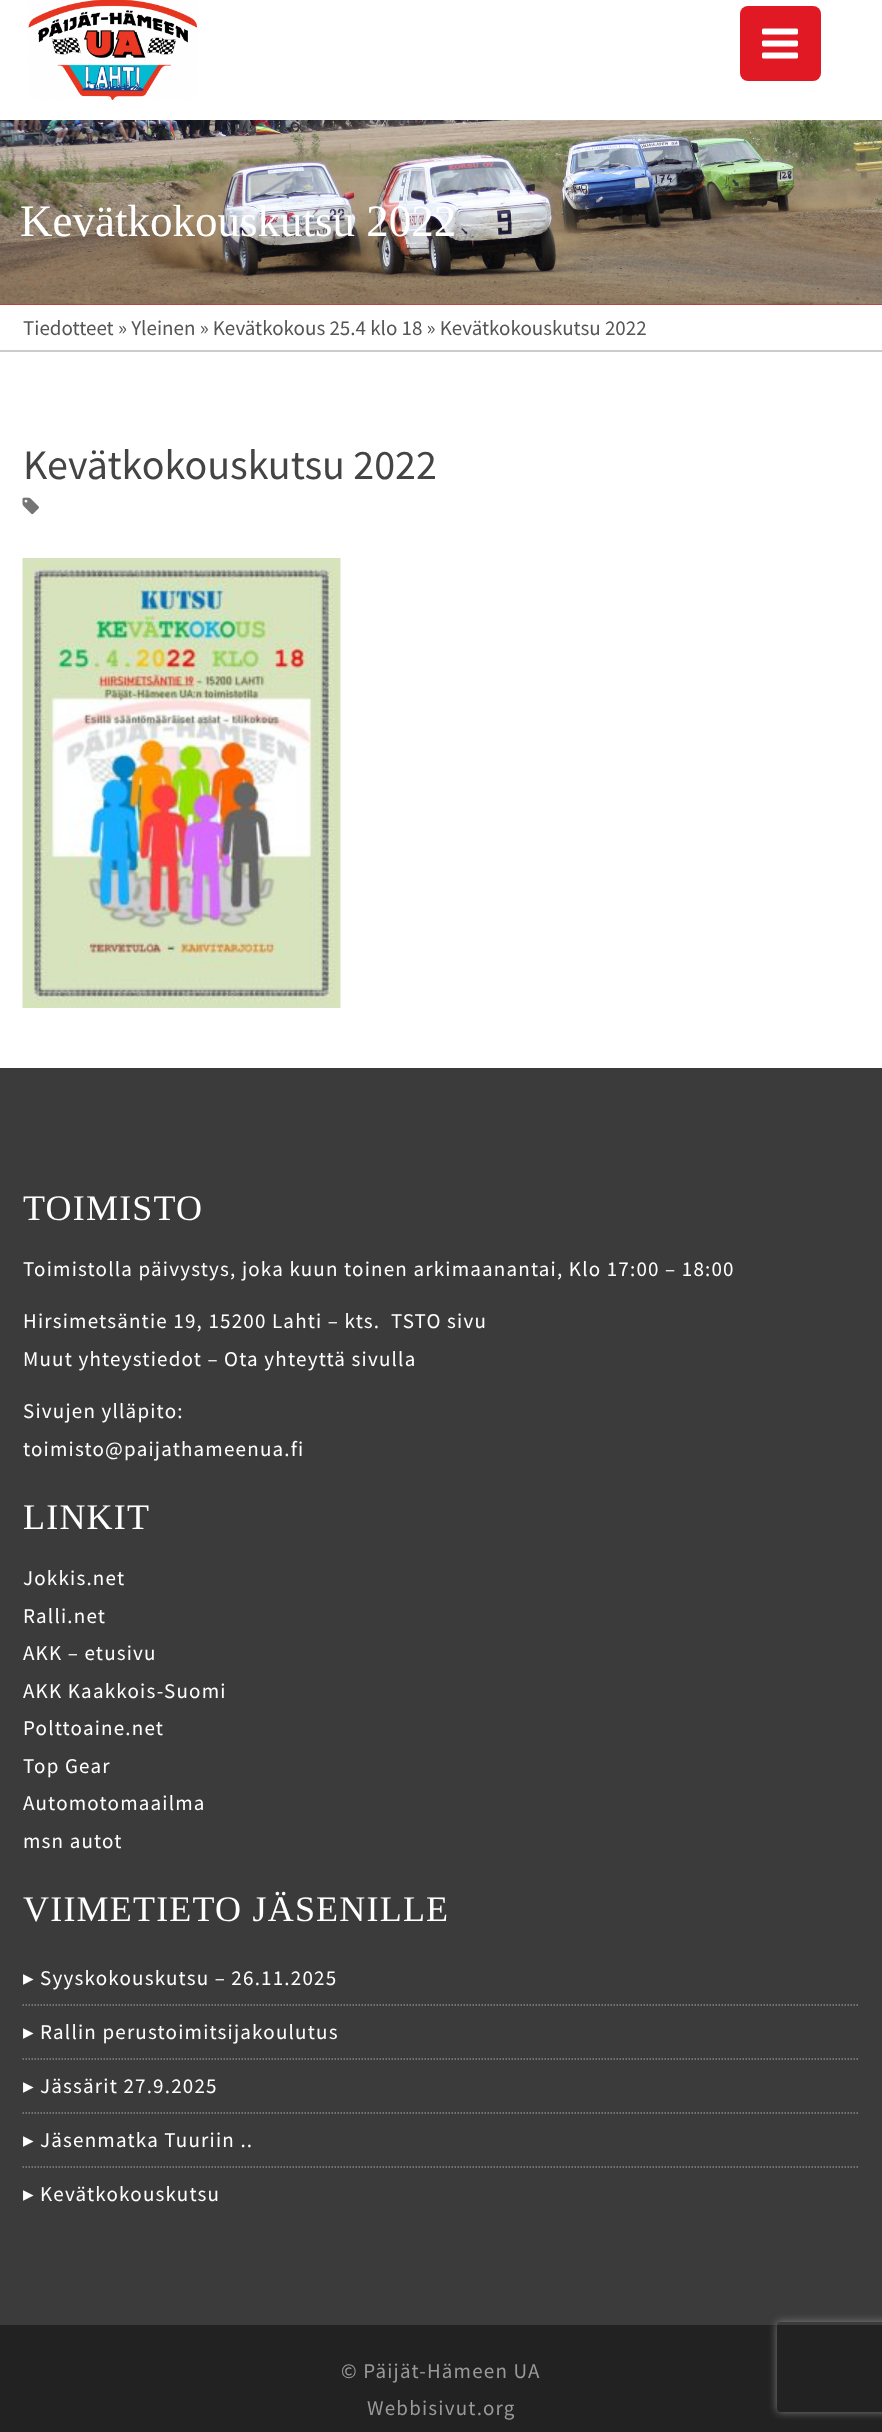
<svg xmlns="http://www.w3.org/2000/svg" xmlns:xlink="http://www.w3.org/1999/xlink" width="882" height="2432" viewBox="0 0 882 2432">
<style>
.cls-1{font:45px Liberation Serif;fill:#ffffff}
.cls-2{font:21px Source Sans Pro;fill:#555555}
.cls-3{font:42px Source Sans Pro;fill:#444444}
.cls-4{font:36px Liberation Serif;letter-spacing:1.2px;fill:#ffffff}
.cls-5{font:21px Source Sans Pro;letter-spacing:1.2px;fill:#ffffff}
.cls-6{font:21px DejaVu Sans;letter-spacing:1.2px;fill:#ffffff}
.cls-7{font:21px Source Sans Pro;letter-spacing:1.2px;fill:#999999}
</style>
<defs>
<clipPath id="clip1"><path d="M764 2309H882V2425H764ZM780 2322H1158C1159.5 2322 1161 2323.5 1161 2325V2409C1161 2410.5 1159.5 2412 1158 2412H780C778.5 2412 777 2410.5 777 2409V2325C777 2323.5 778.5 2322 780 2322Z" clip-rule="evenodd"/></clipPath>
</defs>
<rect width="100%" height="100%" fill="#ffffff"/>
<image xlink:href="image0.png" x="28" y="0" width="170" height="100"/>
<rect fill="#e11925" x="740" y="6" width="81" height="75" rx="8"/>
<image xlink:href="image1.png" x="762" y="28" width="36" height="31"/>
<rect fill="#e11925" x="0" y="304" width="882" height="1"/>
<image xlink:href="image2.png" x="0" y="120" width="882" height="185"/>
<rect fill="#cccccc" x="0" y="350" width="882" height="2"/>
<image xlink:href="image3.png" x="22" y="497" width="17" height="18"/>
<image xlink:href="image4.png" x="22" y="558" width="319" height="450"/>
<rect fill="#3b3b3b" x="0" y="1068" width="882" height="1257"/>
<path fill="none" stroke="#888888" stroke-width="1.5" stroke-dasharray="1.5 1.5" d="M22.5 2005H859.5"/>
<path fill="none" stroke="#888888" stroke-width="1.5" stroke-dasharray="1.5 1.5" d="M22.5 2059H859.5"/>
<path fill="none" stroke="#888888" stroke-width="1.5" stroke-dasharray="1.5 1.5" d="M22.5 2113H859.5"/>
<path fill="none" stroke="#888888" stroke-width="1.5" stroke-dasharray="1.5 1.5" d="M22.5 2167H859.5"/>
<rect fill="#222222" x="0" y="2325" width="882" height="107"/>
<g clip-path="url(#clip1)">
<rect fill="#808080" filter="blur(4px)" x="777" y="2322" width="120" height="90" rx="3"/>
</g>
<text class="cls-1" x="20" y="236">Kevätkokouskutsu 2022</text>
<text class="cls-2" x="23" y="335">Tiedotteet » Yleinen » Kevätkokous 25.4 klo 18 » Kevätkokouskutsu 2022</text>
<text class="cls-3" x="23" y="479">Kevätkokouskutsu 2022</text>
<text class="cls-4" x="23" y="1220">TOIMISTO</text>
<text class="cls-5" x="23" y="1276">Toimistolla päivystys, joka kuun toinen arkimaanantai, Klo 17:00 – 18:00</text>
<text class="cls-5" xml:space="preserve"><tspan x="23" y="1328">Hirsimetsäntie 19, 15200 Lahti – kts.  TSTO sivu</tspan><tspan x="23" y="1366">Muut yhteystiedot – Ota yhteyttä sivulla</tspan></text>
<text class="cls-5"><tspan x="23" y="1418">Sivujen ylläpito:</tspan><tspan x="23" y="1456">toimisto@paijathameenua.fi</tspan></text>
<text class="cls-4" x="23" y="1529">LINKIT</text>
<text class="cls-5"><tspan x="23" y="1585">Jokkis.net</tspan><tspan x="23" y="1623">Ralli.net</tspan><tspan x="23" y="1660">AKK – etusivu</tspan><tspan x="23" y="1698">AKK Kaakkois-Suomi</tspan><tspan x="23" y="1735">Polttoaine.net</tspan><tspan x="23" y="1773">Top Gear</tspan><tspan x="23" y="1810">Automotomaailma</tspan><tspan x="23" y="1848">msn autot</tspan></text>
<text class="cls-4" x="23" y="1921">VIIMETIETO JÄSENILLE</text>
<text class="cls-6" x="23" y="1985">▸</text>
<text class="cls-5" x="40" y="1985">Syyskokouskutsu – 26.11.2025</text>
<text class="cls-6" x="23" y="2039">▸</text>
<text class="cls-5" x="40" y="2039">Rallin perustoimitsijakoulutus</text>
<text class="cls-6" x="23" y="2093">▸</text>
<text class="cls-5" x="40" y="2093">Jässärit 27.9.2025</text>
<text class="cls-6" x="23" y="2147">▸</text>
<text class="cls-5" x="40" y="2147">Jäsenmatka Tuuriin ..</text>
<text class="cls-6" x="23" y="2201">▸</text>
<text class="cls-5" x="40" y="2201">Kevätkokouskutsu</text>
<text class="cls-7" x="341" y="2378">© Päijät-Hämeen UA</text>
<text class="cls-7" x="367" y="2415">Webbisivut.org</text>
</svg>
